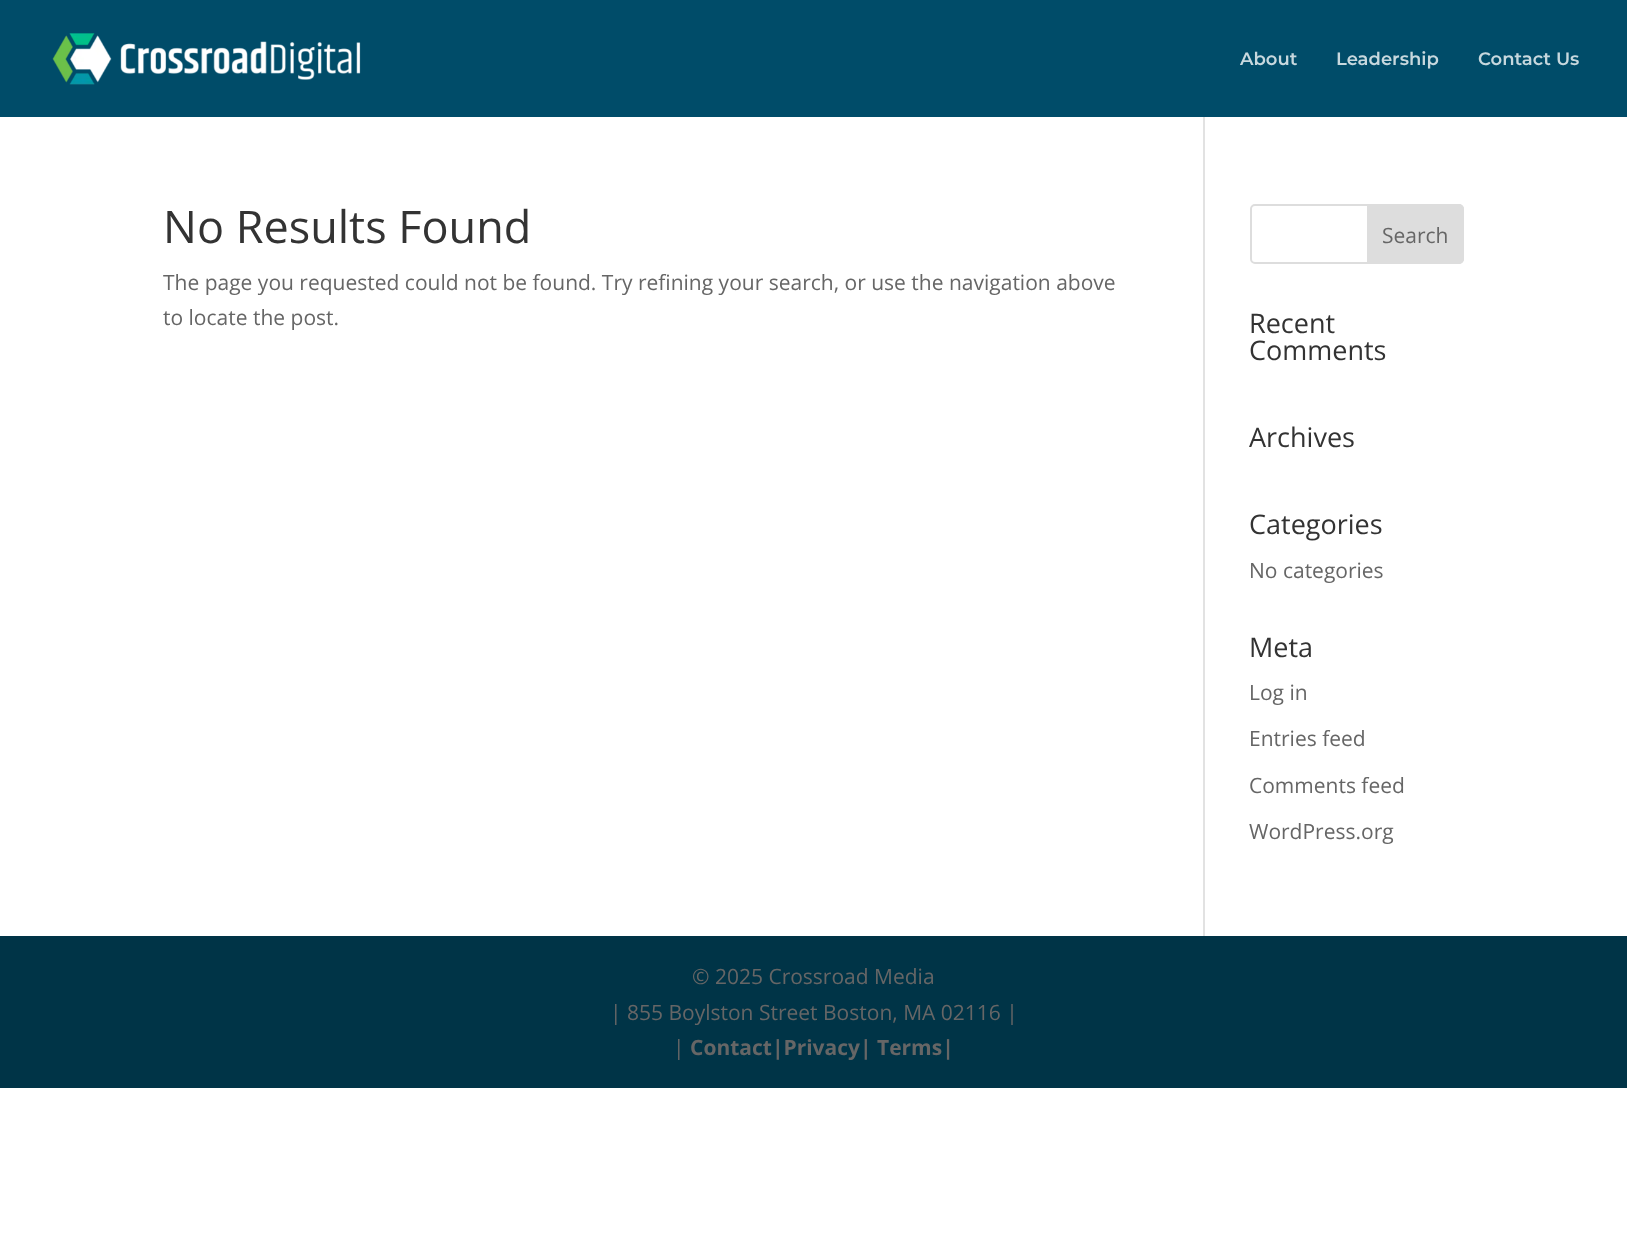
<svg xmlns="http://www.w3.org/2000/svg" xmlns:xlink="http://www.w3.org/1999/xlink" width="1627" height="1257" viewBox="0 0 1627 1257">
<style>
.cls-1{font:600 18px Montserrat;fill:#c7d8de}
.cls-2{font:45px Open Sans;fill:#333333}
.cls-3{font:21px Open Sans;fill:#666666}
.cls-4{font:27px Open Sans;fill:#333333}
.cls-5{font:bold 21px Open Sans;fill:#666666}
</style>
<rect width="100%" height="100%" fill="#ffffff"/>
<rect fill="#004c69" x="0" y="0" width="1627" height="117"/>
<image xlink:href="image0.png" x="52" y="33" width="309" height="52"/>
<rect fill="#e2e2e2" x="1203" y="117" width="2" height="819"/>
<rect fill="none" stroke="#dddddd" stroke-width="2" x="1251" y="205" width="212" height="58" rx="4"/>
<path fill="#dddddd" stroke="#dddddd" stroke-width="2" d="M1368 205H1459C1461 205 1463 207 1463 209V259C1463 261 1461 263 1459 263H1368Z"/>
<rect fill="#003447" x="0" y="936" width="1627" height="152"/>
<text class="cls-1" x="1240" y="65">About</text>
<text class="cls-1" x="1336" y="65">Leadership</text>
<text class="cls-1" x="1478" y="65">Contact Us</text>
<text class="cls-2" x="163" y="243">No Results Found</text>
<text class="cls-3"><tspan x="163" y="290">The page you requested could not be found. Try refining your search, or use the navigation above</tspan><tspan x="163" y="325">to locate the post.</tspan></text>
<text class="cls-3" x="1382" y="243">Search</text>
<text class="cls-4"><tspan x="1249" y="333">Recent</tspan><tspan x="1249" y="360">Comments</tspan></text>
<text class="cls-4" x="1249" y="447">Archives</text>
<text class="cls-4" x="1249" y="534">Categories</text>
<text class="cls-3" x="1249" y="578">No categories</text>
<text class="cls-4" x="1249" y="657">Meta</text>
<text class="cls-3" x="1249" y="700">Log in</text>
<text class="cls-3" x="1249" y="746">Entries feed</text>
<text class="cls-3" x="1249" y="793">Comments feed</text>
<text class="cls-3" x="1249" y="839">WordPress.org</text>
<text class="cls-3" x="692" y="984">© 2025 Crossroad Media</text>
<text class="cls-3" x="610" y="1020">| 855 Boylston Street Boston, MA 02116 |</text>
<text class="cls-3" x="673" y="1055">|</text>
<text class="cls-5" x="690" y="1055">Contact|Privacy| Terms|</text>
</svg>
